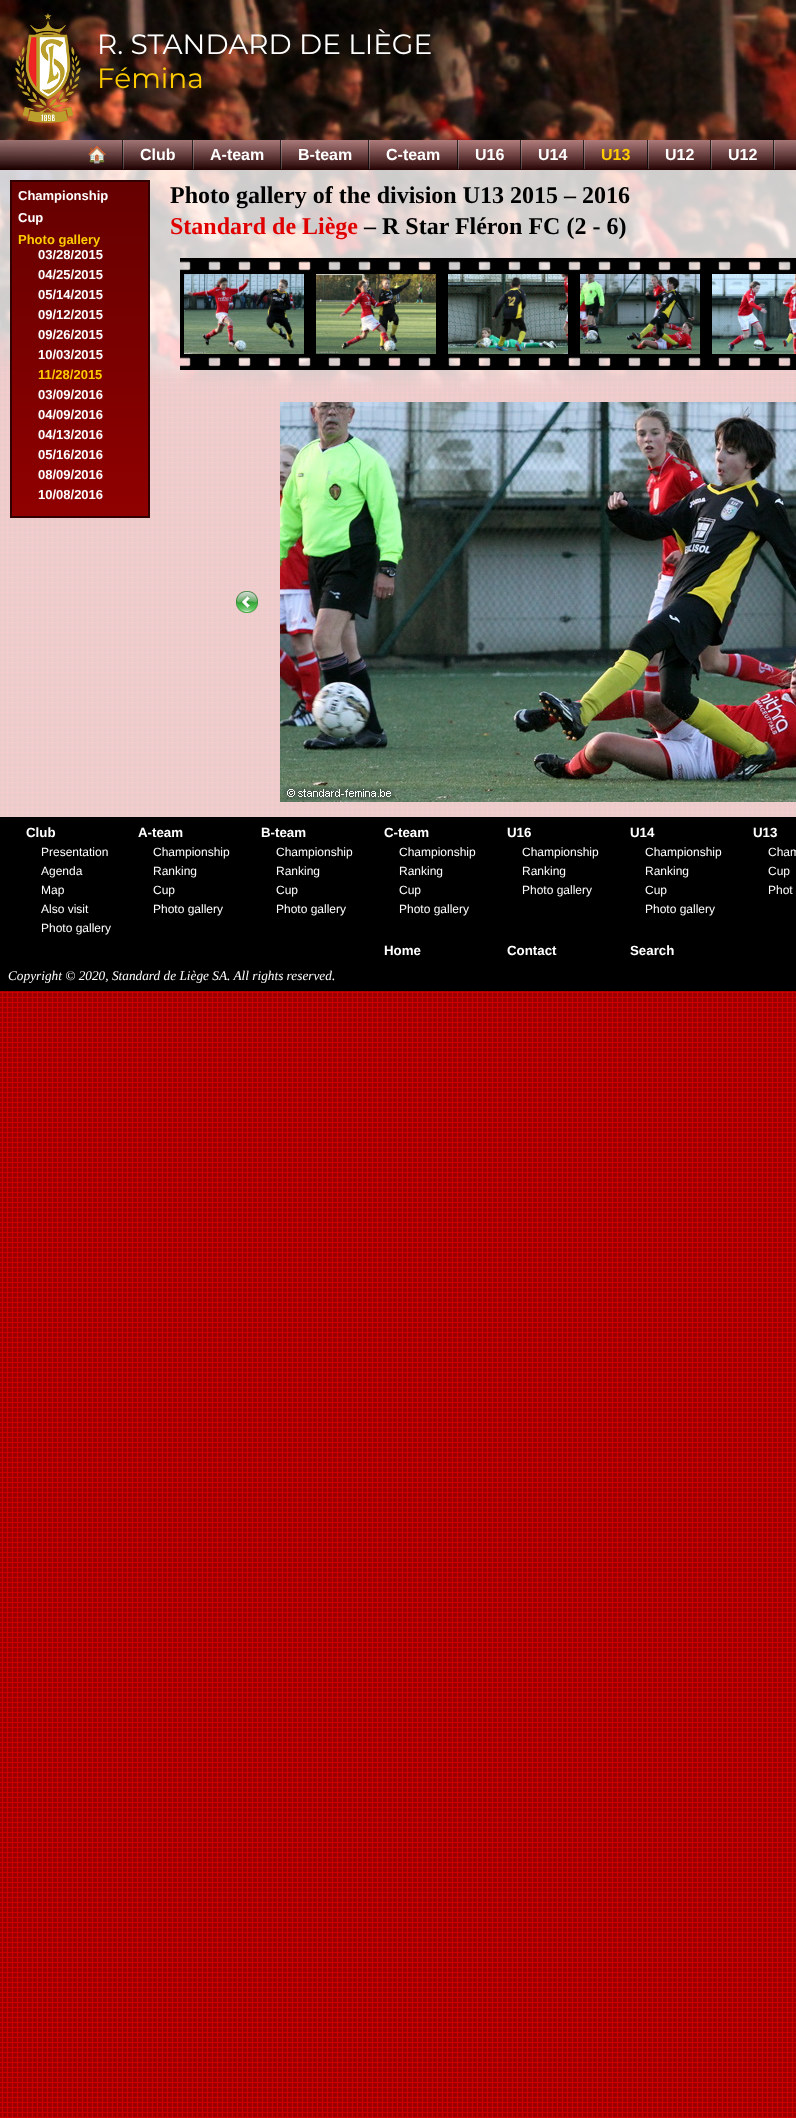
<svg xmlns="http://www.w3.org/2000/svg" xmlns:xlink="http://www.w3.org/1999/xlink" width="796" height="2118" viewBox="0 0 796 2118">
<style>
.cls-1{font:28px Montserrat;fill:#ffffff}
.cls-2{font:28px Montserrat;fill:#ffcc00}
.cls-3{font:bold 16px Noto Color Emoji;fill:#ffffff}
.cls-4{font:bold 16px Liberation Sans;fill:#ffffff}
.cls-5{font:bold 16px Liberation Sans;fill:#ffcc00}
.cls-6{font:bold 13px Liberation Sans;fill:#ffffff}
.cls-7{font:bold 13px Liberation Sans;fill:#ffcc00}
.cls-8{font:bold 24px Liberation Serif;fill:#000000}
.cls-9{font:bold 24px Liberation Serif;fill:#e00000}
.cls-10{font:bold 13.3px Liberation Sans;fill:#ffffff}
.cls-11{font:12px Liberation Sans;fill:#ffffff}
.cls-12{font:italic 13.3px Liberation Serif;fill:#ffffff}
</style>
<defs>
<clipPath id="clip1"><rect x="18" y="250" width="124" height="260"/></clipPath>
</defs>
<rect width="100%" height="100%" fill="#990000"/>
<image xlink:href="image0.png" x="0" y="326" width="796" height="1792"/>
<image xlink:href="image1.png" x="0" y="170" width="796" height="224"/>
<image xlink:href="image2.png" x="0" y="0" width="796" height="140"/>
<image xlink:href="image3.png" x="15" y="13" width="66" height="110"/>
<image xlink:href="image4.png" x="0" y="140" width="796" height="30"/>
<image xlink:href="image5.png" x="122" y="140" width="2" height="29"/>
<image xlink:href="image6.png" x="192" y="140" width="2" height="29"/>
<image xlink:href="image7.png" x="280" y="140" width="2" height="29"/>
<image xlink:href="image8.png" x="368" y="140" width="2" height="29"/>
<image xlink:href="image9.png" x="457" y="140" width="2" height="29"/>
<image xlink:href="image10.png" x="520" y="140" width="2" height="29"/>
<image xlink:href="image11.png" x="583" y="140" width="2" height="29"/>
<image xlink:href="image12.png" x="647" y="140" width="2" height="29"/>
<image xlink:href="image13.png" x="710" y="140" width="2" height="29"/>
<image xlink:href="image14.png" x="773" y="140" width="2" height="29"/>
<rect fill="#ffffff" fill-opacity="0.8" x="0" y="170" width="796" height="647"/>
<image xlink:href="image15.png" x="12" y="182" width="136" height="334"/>
<rect fill="none" stroke="#330000" stroke-width="2" x="11" y="181" width="138" height="336"/>
<image xlink:href="image16.png" x="180" y="258" width="616" height="112"/>
<image xlink:href="image17.png" x="184" y="274" width="120" height="80"/>
<image xlink:href="image18.png" x="316" y="274" width="120" height="80"/>
<image xlink:href="image19.png" x="448" y="274" width="120" height="80"/>
<image xlink:href="image20.png" x="580" y="274" width="120" height="80"/>
<image xlink:href="image21.png" x="712" y="274" width="84" height="80"/>
<image xlink:href="image22.png" x="236" y="591" width="22" height="22"/>
<image xlink:href="image23.png" x="280" y="402" width="516" height="400"/>
<rect fill="#000000" x="0" y="817" width="796" height="174"/>
<text class="cls-1" x="97" y="54">R. STANDARD DE LIÈGE</text>
<text class="cls-2" x="97" y="88">Fémina</text>
<text class="cls-3" x="87" y="160">🏠</text>
<text class="cls-4" x="140" y="160">Club</text>
<text class="cls-4" x="210" y="160">A-team</text>
<text class="cls-4" x="298" y="160">B-team</text>
<text class="cls-4" x="386" y="160">C-team</text>
<text class="cls-4" x="475" y="160">U16</text>
<text class="cls-4" x="538" y="160">U14</text>
<text class="cls-5" x="601" y="160">U13</text>
<text class="cls-4" x="665" y="160">U12</text>
<text class="cls-4" x="728" y="160">U12</text>
<text class="cls-6"><tspan x="18" y="200">Championship</tspan><tspan x="18" y="222">Cup</tspan></text>
<text class="cls-7" x="18" y="244">Photo gallery</text>
<g clip-path="url(#clip1)">
<text class="cls-6" x="38" y="259">03/28/2015</text>
</g>
<text class="cls-6"><tspan x="38" y="279">04/25/2015</tspan><tspan x="38" y="299">05/14/2015</tspan><tspan x="38" y="319">09/12/2015</tspan><tspan x="38" y="339">09/26/2015</tspan><tspan x="38" y="359">10/03/2015</tspan></text>
<text class="cls-7" x="38" y="379">11/28/2015</text>
<text class="cls-6"><tspan x="38" y="399">03/09/2016</tspan><tspan x="38" y="419">04/09/2016</tspan><tspan x="38" y="439">04/13/2016</tspan><tspan x="38" y="459">05/16/2016</tspan><tspan x="38" y="479">08/09/2016</tspan><tspan x="38" y="499">10/08/2016</tspan></text>
<text class="cls-8" x="170" y="203">Photo gallery of the division U13 2015 – 2016</text>
<text class="cls-9" x="170" y="234">Standard de Liège</text>
<text class="cls-8" x="364" y="234">– R Star Fléron FC (2 - 6)</text>
<text class="cls-10" x="26" y="837">Club</text>
<text class="cls-11"><tspan x="41" y="856">Presentation</tspan><tspan x="41" y="875">Agenda</tspan><tspan x="41" y="894">Map</tspan><tspan x="41" y="913">Also visit</tspan><tspan x="41" y="932">Photo gallery</tspan></text>
<text class="cls-10" x="138" y="837">A-team</text>
<text class="cls-11"><tspan x="153" y="856">Championship</tspan><tspan x="153" y="875">Ranking</tspan><tspan x="153" y="894">Cup</tspan><tspan x="153" y="913">Photo gallery</tspan></text>
<text class="cls-10" x="261" y="837">B-team</text>
<text class="cls-11"><tspan x="276" y="856">Championship</tspan><tspan x="276" y="875">Ranking</tspan><tspan x="276" y="894">Cup</tspan><tspan x="276" y="913">Photo gallery</tspan></text>
<text class="cls-10" x="384" y="837">C-team</text>
<text class="cls-11"><tspan x="399" y="856">Championship</tspan><tspan x="399" y="875">Ranking</tspan><tspan x="399" y="894">Cup</tspan><tspan x="399" y="913">Photo gallery</tspan></text>
<text class="cls-10" x="507" y="837">U16</text>
<text class="cls-11"><tspan x="522" y="856">Championship</tspan><tspan x="522" y="875">Ranking</tspan><tspan x="522" y="894">Photo gallery</tspan></text>
<text class="cls-10" x="630" y="837">U14</text>
<text class="cls-11"><tspan x="645" y="856">Championship</tspan><tspan x="645" y="875">Ranking</tspan><tspan x="645" y="894">Cup</tspan><tspan x="645" y="913">Photo gallery</tspan></text>
<text class="cls-10" x="753" y="837">U13</text>
<text class="cls-11"><tspan x="768" y="856">Cham</tspan><tspan x="768" y="875">Cup</tspan><tspan x="768" y="894">Phot</tspan></text>
<text class="cls-10" x="384" y="955">Home</text>
<text class="cls-10" x="507" y="955">Contact</text>
<text class="cls-10" x="630" y="955">Search</text>
<text class="cls-12" x="8" y="980">Copyright © 2020, Standard de Liège SA. All rights reserved.</text>
</svg>
